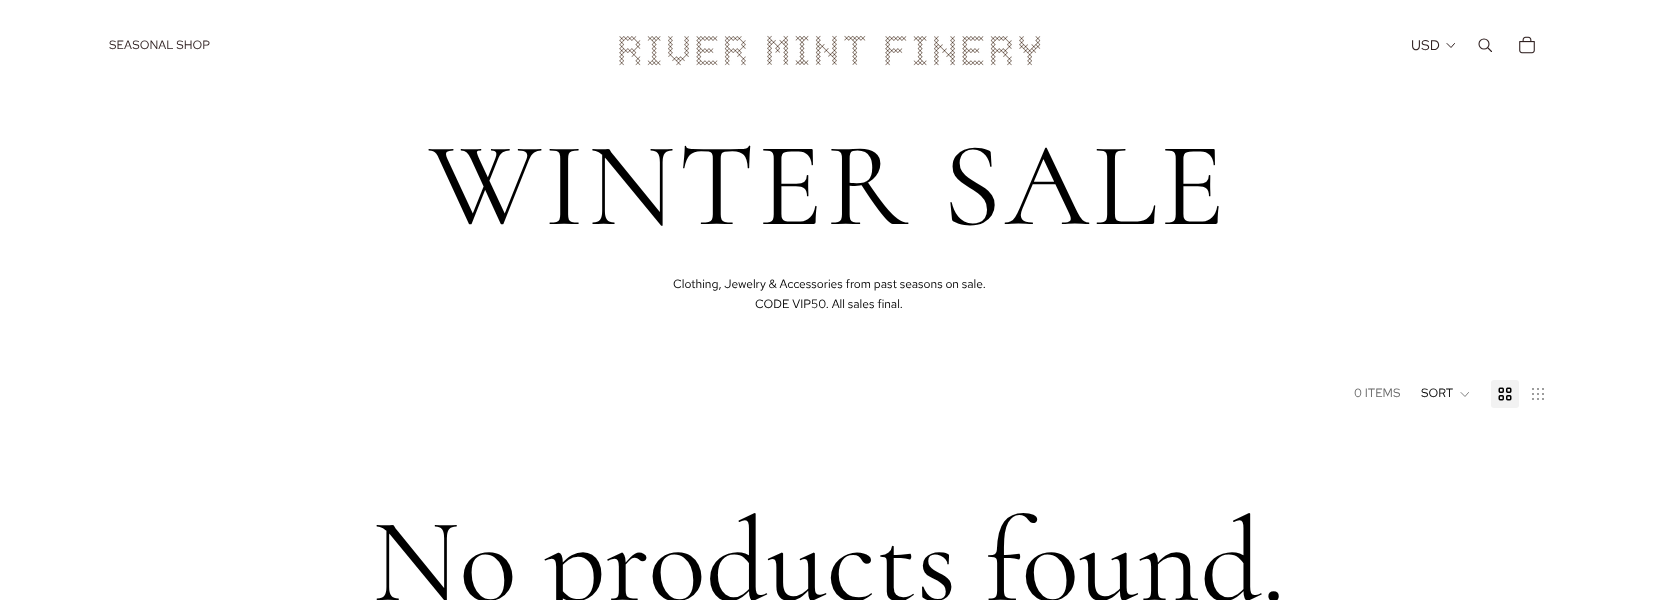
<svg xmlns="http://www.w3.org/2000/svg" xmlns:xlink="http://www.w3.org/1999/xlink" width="1658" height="600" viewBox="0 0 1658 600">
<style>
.cls-1{font:12px Red Hat Text;fill:#302121}
.cls-2{font:14px Red Hat Text;fill:#302121}
.cls-3{font:120px Cormorant;letter-spacing:3.6px;fill:#000000}
.cls-4{font:12px Red Hat Text;fill:#000000}
.cls-5{font:12px Red Hat Text;fill:#666666}
.cls-6{font:120px Cormorant;fill:#000000}
</style>
<rect width="100%" height="100%" fill="#ffffff"/>
<image xlink:href="image0.png" x="619" y="35" width="422" height="31"/>
<path fill="none" stroke="#302121" stroke-linecap="round" stroke-linejoin="round" d="M1454.5 43.5L1451 47.5L1447 43.5"/>
<circle fill="none" stroke="#302121" stroke-width="1.1" cx="1484" cy="44" r="5"/>
<path fill="none" stroke="#302121" stroke-width="1.1" stroke-linecap="round" stroke-linejoin="round" d="M1488 48L1491.5 51.5"/>
<image xlink:href="image1.png" x="1519" y="36" width="16" height="18"/>
<path fill="none" stroke="#808080" stroke-linecap="round" stroke-linejoin="round" d="M1468.5 392.5L1465 396.5L1461 392.5"/>
<rect fill="#f2f2f2" x="1491" y="380" width="28" height="28" rx="3"/>
<image xlink:href="image2.png" x="1498" y="387" width="14" height="14"/>
<image xlink:href="image3.png" x="1532" y="388" width="12" height="12"/>
<text class="cls-1" x="109" y="49">SEASONAL SHOP</text>
<text class="cls-2" x="1411" y="50">USD</text>
<text class="cls-3" x="429" y="224">WINTER SALE</text>
<text class="cls-4" x="673" y="288">Clothing, Jewelry &amp; Accessories from past seasons on sale.</text>
<text class="cls-4" x="755" y="308">CODE VIP50. All sales final.</text>
<text class="cls-5" x="1354" y="397">0 ITEMS</text>
<text class="cls-4" x="1421" y="397">SORT</text>
<text class="cls-6" x="372" y="600">No products found.</text>
</svg>
